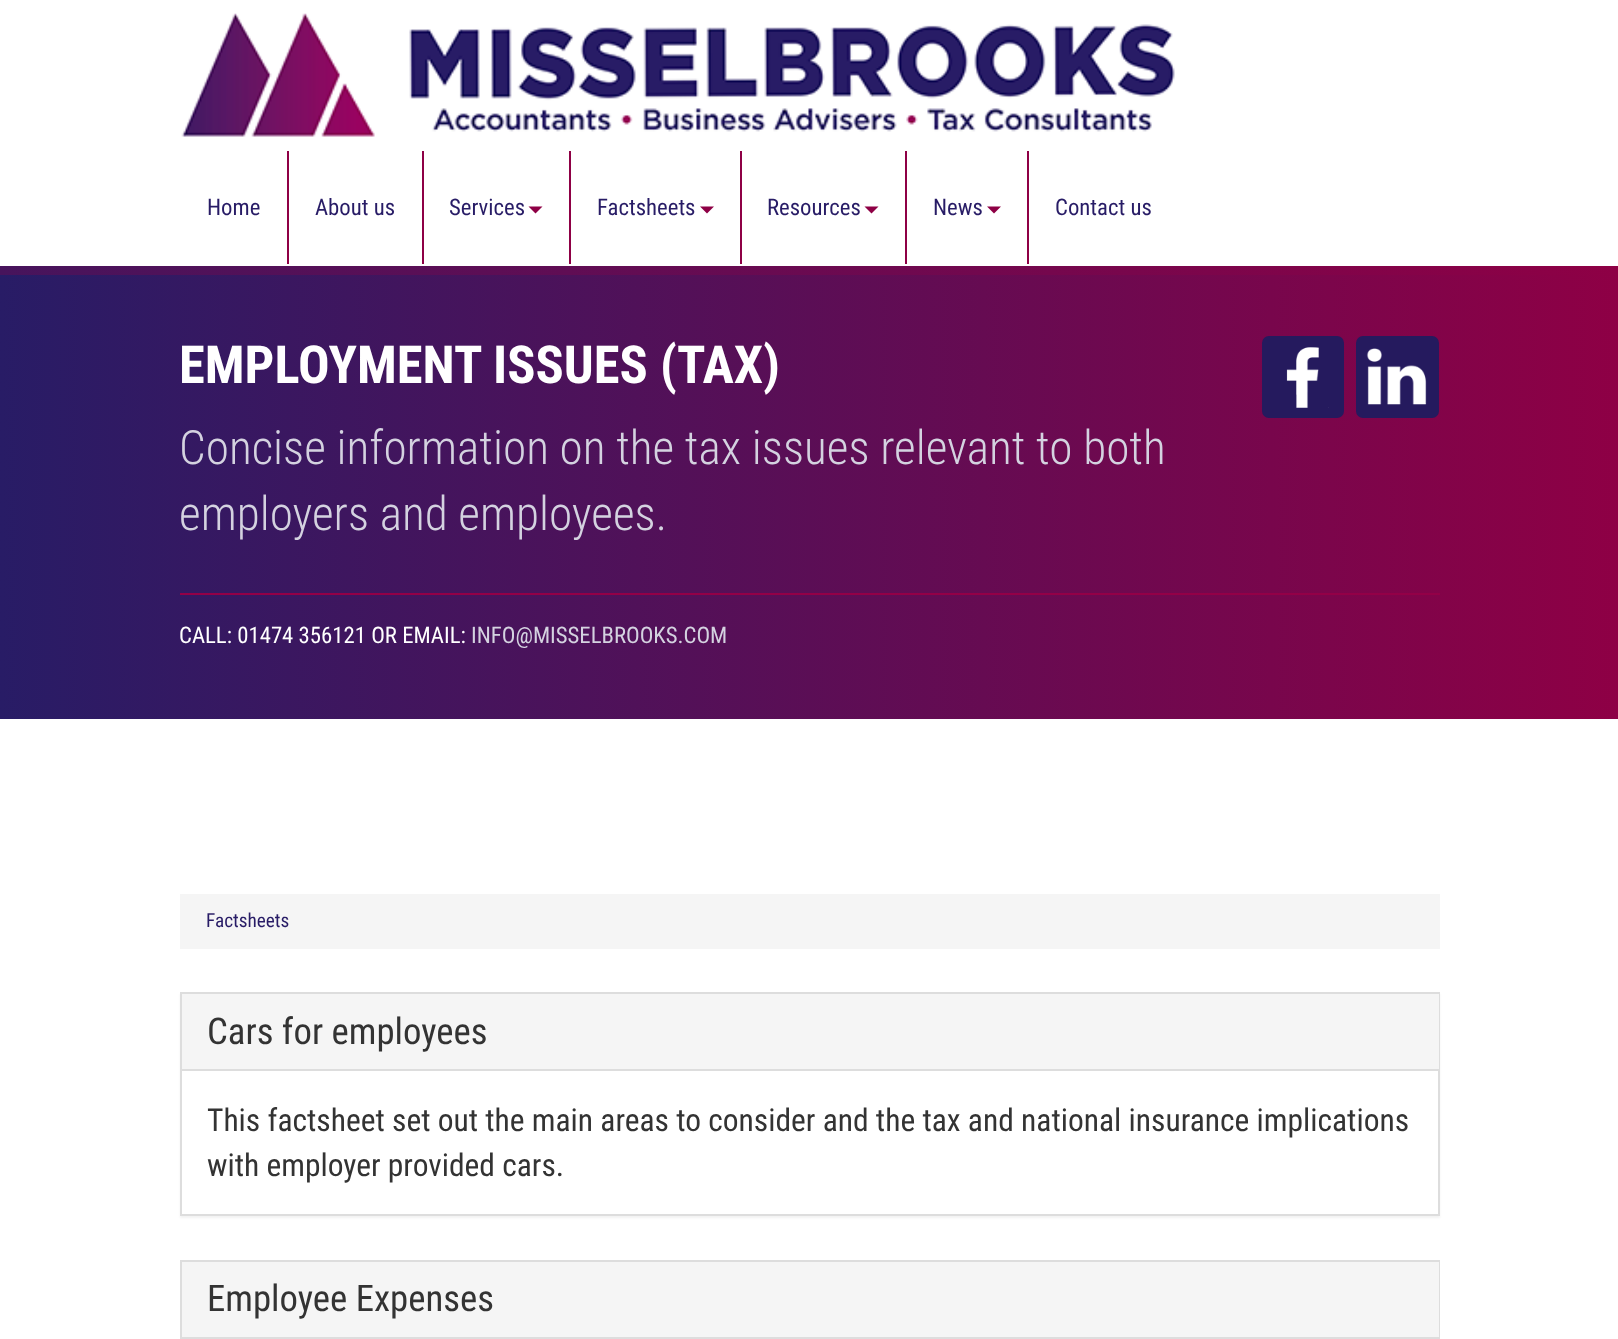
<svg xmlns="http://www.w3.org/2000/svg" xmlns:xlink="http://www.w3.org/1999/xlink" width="1618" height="1339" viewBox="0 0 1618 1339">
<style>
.cls-1{font:22.75px Roboto Condensed;fill:#281c66}
.cls-2{font:bold 52.5px Roboto Condensed;fill:#ffffff}
.cls-3{font:300 47.25px Roboto Condensed;fill:#d4d2e0}
.cls-4{font:22.75px Roboto Condensed;fill:#ffffff}
.cls-5{font:22.75px Roboto Condensed;fill:#d4d2e0}
.cls-6{font:19.25px Roboto Condensed;fill:#281c66}
.cls-7{font:36.75px Roboto Condensed;fill:#333333}
.cls-8{font:31.5px Roboto Condensed;fill:#333333}
</style>
<defs>
<linearGradient id="g1" gradientUnits="userSpaceOnUse" x1="0" y1="493" x2="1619" y2="493"><stop offset="0" stop-color="#281c66"/><stop offset="1" stop-color="#8e0045"/></linearGradient>
<linearGradient id="g2" gradientUnits="userSpaceOnUse" x1="0" y1="493" x2="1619" y2="493"><stop offset="0" stop-color="#47145c"/><stop offset="1" stop-color="#8e0045"/></linearGradient>
</defs>
<rect width="100%" height="100%" fill="#ffffff"/>
<image xlink:href="image0.png" x="181" y="13" width="994" height="124"/>
<rect fill="#8e0045" x="287" y="151" width="2" height="113"/>
<rect fill="#8e0045" x="422" y="151" width="2" height="113"/>
<path fill="#8e0045" d="M528.5 206.5H542.5L535.5 213.5Z"/>
<rect fill="#8e0045" x="569" y="151" width="2" height="113"/>
<path fill="#8e0045" d="M700 206.5H714L707 213.5Z"/>
<rect fill="#8e0045" x="740" y="151" width="2" height="113"/>
<path fill="#8e0045" d="M864.5 206.5H878.5L871.5 213.5Z"/>
<rect fill="#8e0045" x="905" y="151" width="2" height="113"/>
<path fill="#8e0045" d="M987 206.5H1001L994 213.5Z"/>
<rect fill="#8e0045" x="1027" y="151" width="2" height="113"/>
<rect fill="url(#g1)" x="0" y="275" width="1618" height="444"/>
<rect fill="url(#g2)" x="0" y="266" width="1618" height="9"/>
<rect fill="#251a5e" x="1262" y="336" width="82" height="82" rx="7"/>
<image xlink:href="image1.png" x="1286" y="347" width="43" height="61"/>
<rect fill="#251a5e" x="1356" y="336" width="83" height="82" rx="7"/>
<image xlink:href="image2.png" x="1366" y="348" width="61" height="57"/>
<rect fill="#930047" x="180" y="593" width="1260" height="2"/>
<rect fill="#f5f5f5" x="180" y="894" width="1260" height="55"/>
<rect fill="#000000" fill-opacity="0.05" filter="blur(1px)" x="180" y="994" width="1260" height="224"/>
<rect fill="#ffffff" x="182" y="1071" width="1256" height="143"/>
<rect fill="none" stroke="#dddddd" stroke-width="2" x="181" y="993" width="1258" height="222"/>
<rect fill="#f5f5f5" x="182" y="994" width="1257" height="75"/>
<rect fill="#dddddd" x="182" y="1069" width="1257" height="2"/>
<rect fill="none" stroke="#dddddd" stroke-width="2" x="181" y="1261" width="1258" height="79"/>
<rect fill="#f5f5f5" x="182" y="1262" width="1257" height="75"/>
<rect fill="#dddddd" x="182" y="1337" width="1257" height="2"/>
<text class="cls-1" x="207" y="215">Home</text>
<text class="cls-1" x="315" y="215">About us</text>
<text class="cls-1" x="449" y="215">Services</text>
<text class="cls-1" x="597" y="215">Factsheets</text>
<text class="cls-1" x="767" y="215">Resources</text>
<text class="cls-1" x="933" y="215">News</text>
<text class="cls-1" x="1055" y="215">Contact us</text>
<text class="cls-2" x="179" y="383">EMPLOYMENT ISSUES (TAX)</text>
<text class="cls-3"><tspan x="179" y="464">Concise information on the tax issues relevant to both</tspan><tspan x="179" y="530">employers and employees.</tspan></text>
<text class="cls-4" x="179" y="643">CALL: 01474 356121 OR EMAIL:</text>
<text class="cls-5" x="471" y="643">INFO@MISSELBROOKS.COM</text>
<text class="cls-6" x="206" y="927">Factsheets</text>
<text class="cls-7" x="207" y="1044">Cars for employees</text>
<text class="cls-8"><tspan x="207" y="1131">This factsheet set out the main areas to consider and the tax and national insurance implications</tspan><tspan x="207" y="1176">with employer provided cars.</tspan></text>
<text class="cls-7" x="207" y="1311">Employee Expenses</text>
</svg>
